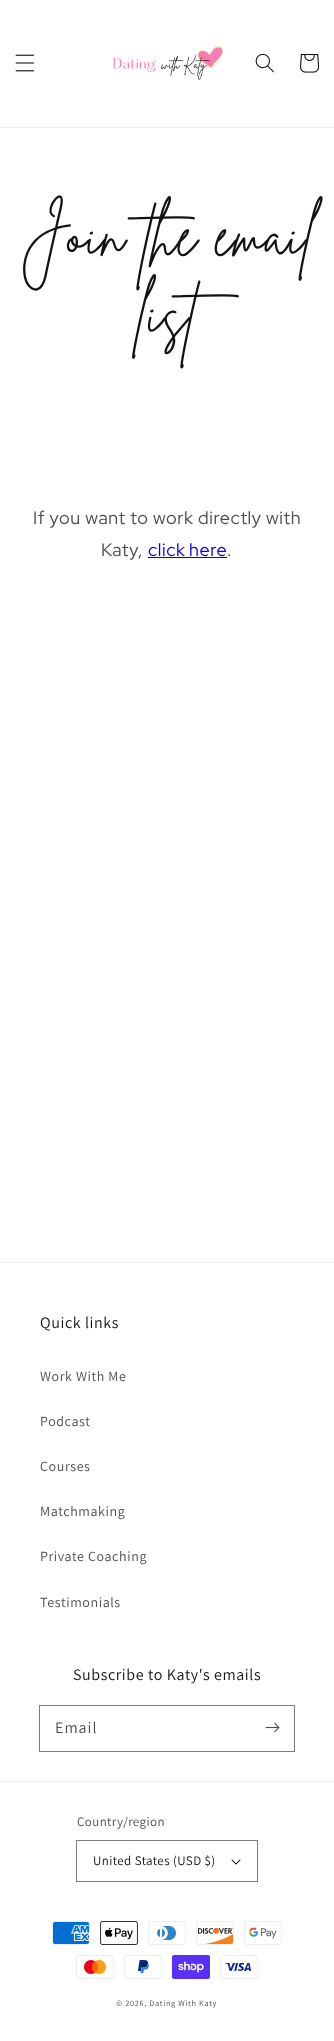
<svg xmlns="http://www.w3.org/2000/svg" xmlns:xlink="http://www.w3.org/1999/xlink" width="334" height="2041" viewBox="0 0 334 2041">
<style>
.cls-1{font:60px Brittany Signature;letter-spacing:0.6px;fill:#121212}
.cls-2{font:18px Red Hat Display;letter-spacing:0.6px;fill:#4d4d4d}
.cls-3{font:18px Red Hat Display;letter-spacing:0.6px;fill:#0000ee}
.cls-4{font:16px Assistant;letter-spacing:0.6px;fill:#121212}
.cls-5{font:14px Assistant;letter-spacing:0.6px;fill:#4d4d4d}
.cls-6{font:16px Assistant;letter-spacing:1px;fill:#4d4d4d}
.cls-7{font:13px Assistant;letter-spacing:0.4px;fill:#4d4d4d}
.cls-8{font:13px Assistant;letter-spacing:0.4px;fill:#121212}
.cls-9{font:8.25px Assistant;letter-spacing:0.7px;fill:#4d4d4d}
</style>
<rect width="100%" height="100%" fill="#ffffff"/>
<rect fill="#ececec" x="0" y="127" width="334" height="1"/>
<image xlink:href="image0.png" x="15" y="54" width="20" height="18"/>
<image xlink:href="image1.png" x="113" y="46" width="111" height="34"/>
<image xlink:href="image2.png" x="255" y="53" width="19" height="20"/>
<image xlink:href="image3.png" x="300" y="54" width="20" height="19"/>
<rect fill="#0000ee" x="148" y="557" width="79" height="1"/>
<rect fill="#ececec" x="0" y="1262" width="334" height="1"/>
<rect fill="none" stroke="#7d7d7d" x="39.5" y="1705.5" width="255" height="46"/>
<image xlink:href="image4.png" x="265" y="1722" width="15" height="11"/>
<rect fill="#ececec" x="0" y="1781" width="334" height="1"/>
<rect fill="none" stroke="#7d7d7d" x="76.5" y="1840.5" width="181" height="41"/>
<image xlink:href="image5.png" x="231" y="1859" width="10" height="6"/>
<image xlink:href="image6.png" x="52" y="1921" width="38" height="24"/>
<image xlink:href="image7.png" x="100" y="1921" width="38" height="24"/>
<image xlink:href="image8.png" x="148" y="1921" width="38" height="24"/>
<image xlink:href="image9.png" x="196" y="1921" width="38" height="24"/>
<image xlink:href="image10.png" x="244" y="1921" width="38" height="24"/>
<image xlink:href="image11.png" x="76" y="1955" width="38" height="24"/>
<image xlink:href="image12.png" x="124" y="1955" width="38" height="24"/>
<image xlink:href="image13.png" x="172" y="1955" width="38" height="24"/>
<image xlink:href="image14.png" x="220" y="1955" width="38" height="24"/>
<text class="cls-1" x="20" y="253">Join the email</text>
<text class="cls-1" x="138" y="331">list</text>
<text class="cls-2" x="33" y="524">If you want to work directly with</text>
<text class="cls-2" x="101" y="556">Katy,</text>
<text class="cls-3" x="148" y="556" word-spacing="-1">click here</text>
<text class="cls-2" x="227" y="556">.</text>
<text class="cls-4" x="40" y="1328">Quick links</text>
<text class="cls-5" x="40" y="1381">Work With Me</text>
<text class="cls-5" x="40" y="1426">Podcast</text>
<text class="cls-5" x="40" y="1471">Courses</text>
<text class="cls-5" x="40" y="1516">Matchmaking</text>
<text class="cls-5" x="40" y="1561">Private Coaching</text>
<text class="cls-5" x="40" y="1607">Testimonials</text>
<text class="cls-4" x="73" y="1680">Subscribe to Katy's emails</text>
<text class="cls-6" x="55" y="1733">Email</text>
<text class="cls-7" x="77" y="1826">Country/region</text>
<text class="cls-8" x="93" y="1865">United States (USD $)</text>
<text class="cls-9" x="116" y="2006">© 2026, Dating With Katy</text>
</svg>
